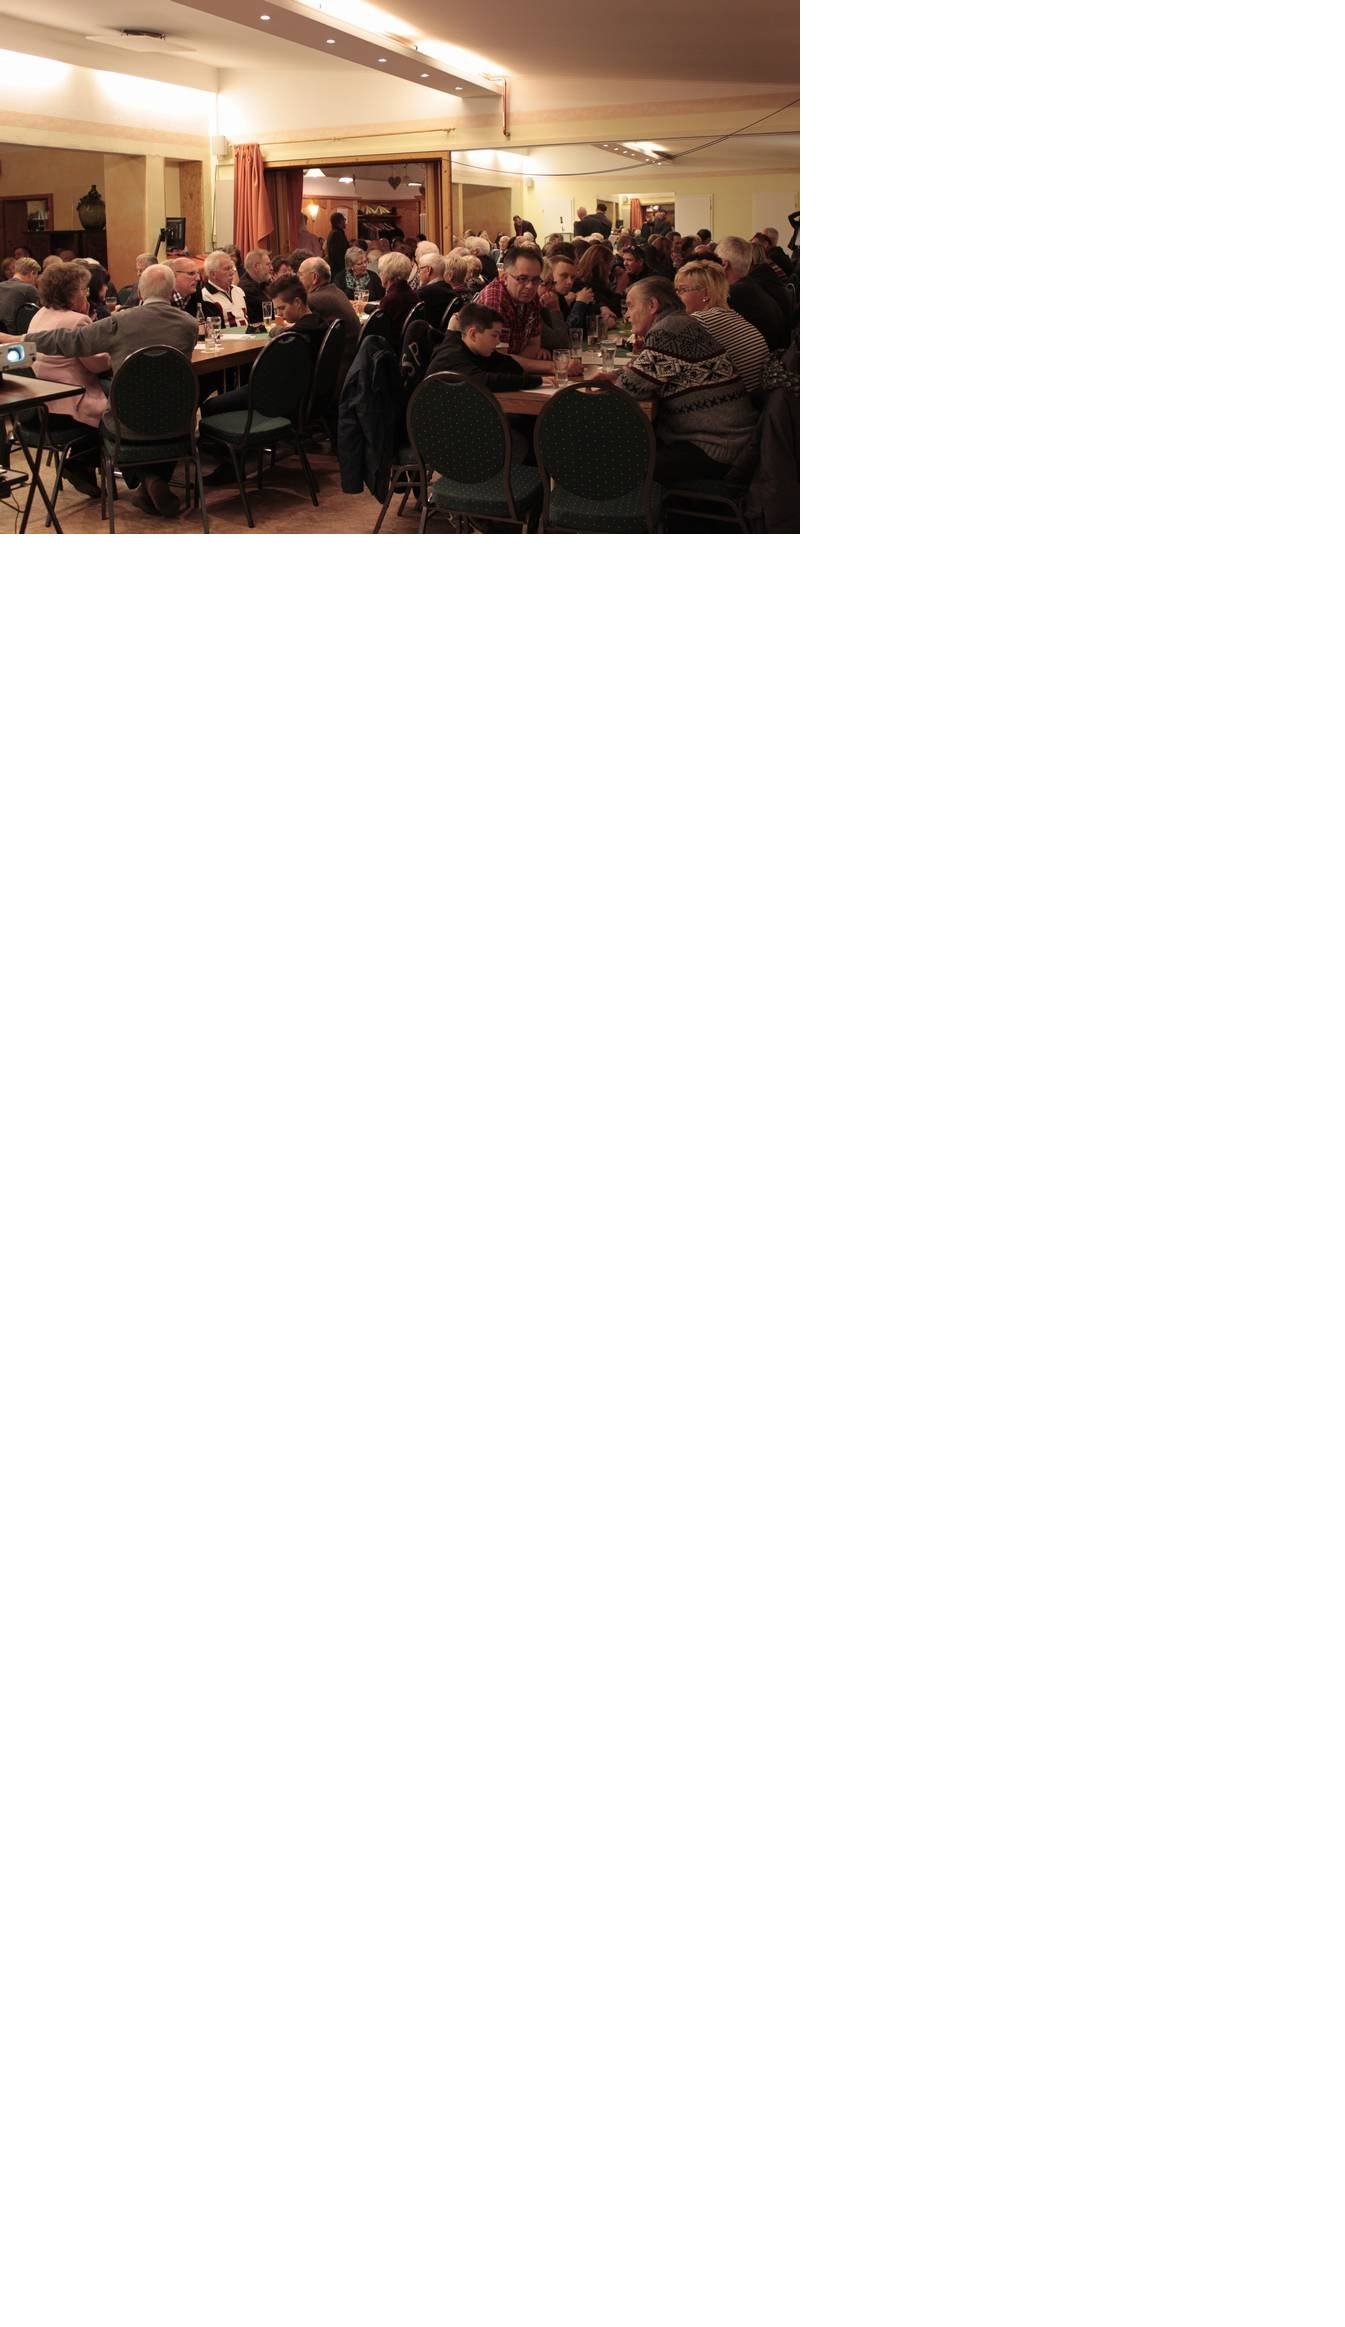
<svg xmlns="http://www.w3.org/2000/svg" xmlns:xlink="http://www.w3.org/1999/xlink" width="1345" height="2327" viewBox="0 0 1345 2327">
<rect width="100%" height="100%" fill="#ffffff"/>
<image xlink:href="image0.png" x="0" y="0" width="800" height="534"/>
</svg>
